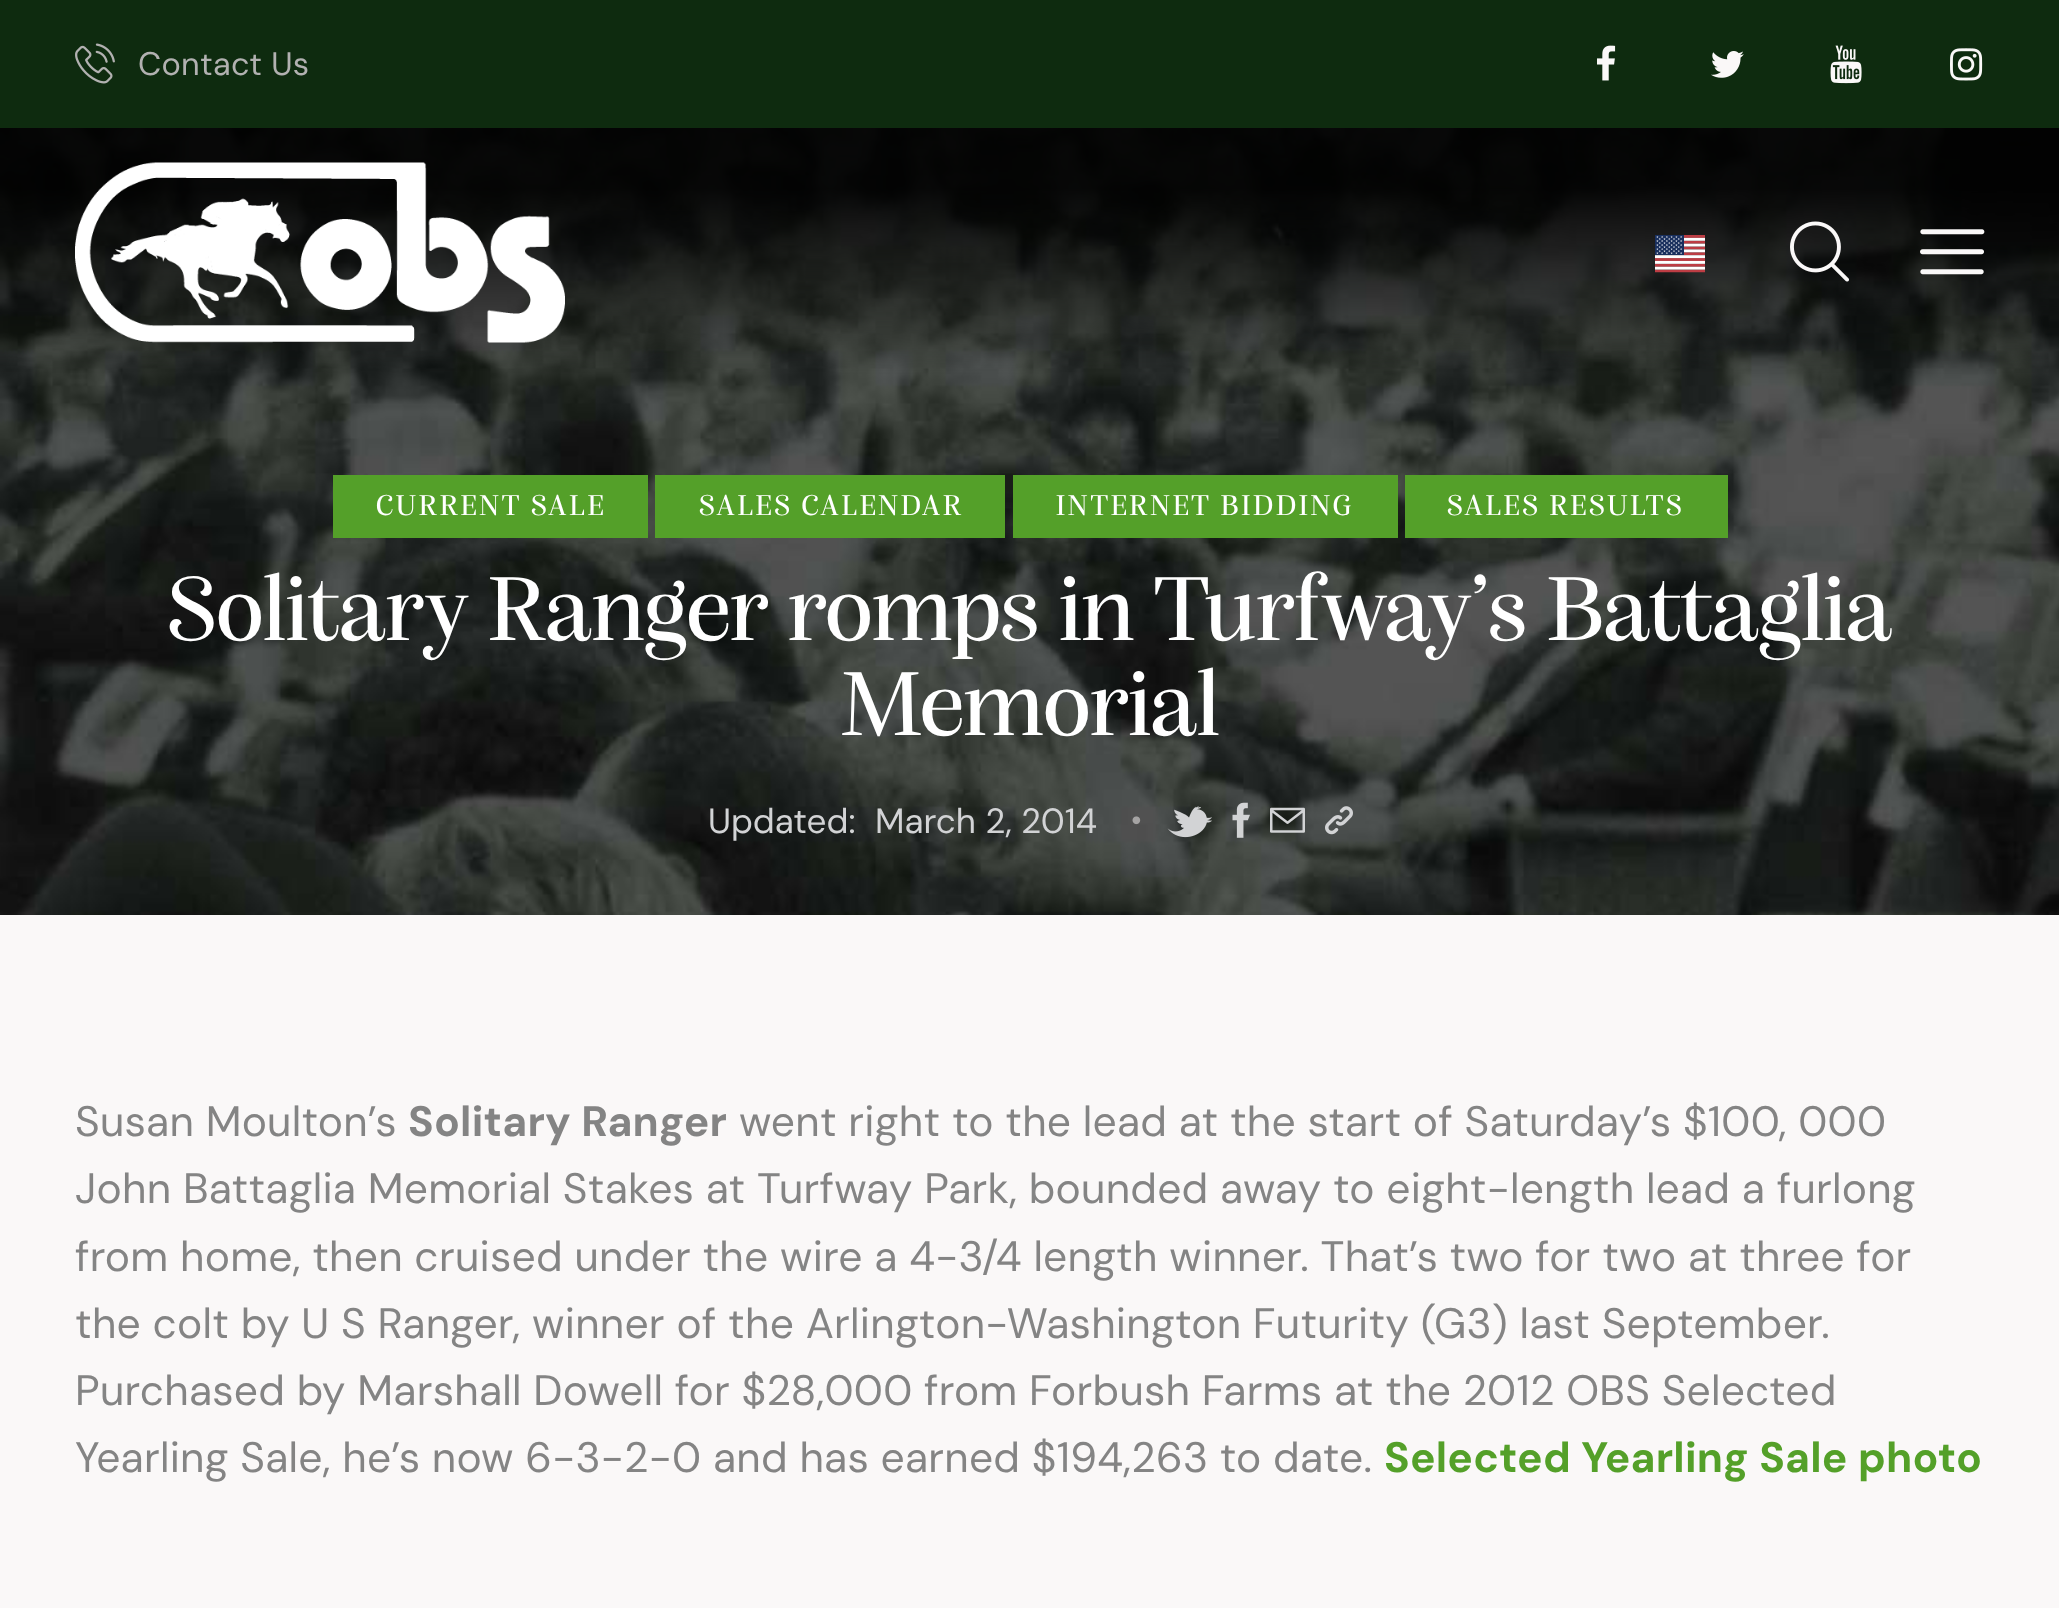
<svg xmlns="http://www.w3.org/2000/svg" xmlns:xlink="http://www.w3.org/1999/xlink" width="2059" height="1608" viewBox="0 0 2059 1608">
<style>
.cls-1{font:32.5px DM Sans;letter-spacing:0.25px;fill:#b2b1b1}
.cls-2{font:500 30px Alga;letter-spacing:2.75px;fill:#ffffff}
.cls-3{font:500 95px Alga;fill:#ffffff}
.cls-4{font:35px DM Sans;fill:#d2d3d5}
.cls-5{font:42.5px DM Sans;letter-spacing:0.25px;fill:#848484}
.cls-6{font:bold 42.5px DM Sans;letter-spacing:0.25px;fill:#848484}
.cls-7{font:bold 42.5px DM Sans;letter-spacing:0.25px;fill:#54a029}
</style>
<rect width="100%" height="100%" fill="#faf8f8"/>
<rect fill="#0e2b0f" x="0" y="0" width="2059" height="128"/>
<image xlink:href="image0.png" x="75" y="43" width="40" height="41"/>
<image xlink:href="image1.png" x="1597" y="45" width="19" height="36"/>
<image xlink:href="image2.png" x="1711" y="51" width="33" height="27"/>
<image xlink:href="image3.png" x="1830" y="45" width="32" height="39"/>
<image xlink:href="image4.png" x="1950" y="48" width="33" height="33"/>
<image xlink:href="image9.png" x="0" y="128" width="2059" height="787"/>
<image xlink:href="image5.png" x="75" y="162" width="490" height="181"/>
<image xlink:href="image6.png" x="1655" y="235" width="50" height="38"/>
<image xlink:href="image7.png" x="1790" y="221" width="59" height="61"/>
<image xlink:href="image8.png" x="1920" y="229" width="65" height="46"/>
<rect fill="#54a029" x="333" y="475" width="315" height="63"/>
<rect fill="#54a029" x="655" y="475" width="350" height="63"/>
<rect fill="#54a029" x="1013" y="475" width="385" height="63"/>
<rect fill="#54a029" x="1405" y="475" width="323" height="63"/>
<image xlink:href="image10.png" x="1132" y="816" width="9" height="9"/>
<image xlink:href="image11.png" x="1167" y="806" width="45" height="32"/>
<image xlink:href="image12.png" x="1232" y="802" width="18" height="36"/>
<image xlink:href="image13.png" x="1270" y="807" width="35" height="26"/>
<image xlink:href="image14.png" x="1325" y="806" width="28" height="29"/>
<text class="cls-1" x="138" y="75">Contact Us</text>
<text class="cls-2" x="376" y="515">CURRENT SALE</text>
<text class="cls-2" x="699" y="515">SALES CALENDAR</text>
<text class="cls-2" x="1056" y="515">INTERNET BIDDING</text>
<text class="cls-2" x="1447" y="515">SALES RESULTS</text>
<text class="cls-3" x="167" y="640">Solitary Ranger romps in Turfway’s Battaglia</text>
<text class="cls-3" x="840" y="735">Memorial</text>
<text class="cls-4" x="708" y="833">Updated:</text>
<text class="cls-4" x="875" y="833">March 2, 2014</text>
<text class="cls-5" x="75" y="1136">Susan Moulton’s</text>
<text class="cls-6" x="408" y="1136">Solitary Ranger</text>
<text class="cls-5" x="739" y="1136">went right to the lead at the start of Saturday’s $100, 000</text>
<text class="cls-5"><tspan x="75" y="1203">John Battaglia Memorial Stakes at Turfway Park, bounded away to eight-length lead a furlong</tspan><tspan x="75" y="1271">from home, then cruised under the wire a 4-3/4 length winner. That’s two for two at three for</tspan><tspan x="75" y="1338">the colt by U S Ranger, winner of the Arlington-Washington Futurity (G3) last September.</tspan><tspan x="75" y="1405">Purchased by Marshall Dowell for $28,000 from Forbush Farms at the 2012 OBS Selected</tspan><tspan x="75" y="1472">Yearling Sale, he’s now 6-3-2-0 and has earned $194,263 to date.</tspan></text>
<text class="cls-7" x="1384" y="1472">Selected Yearling Sale photo</text>
</svg>
